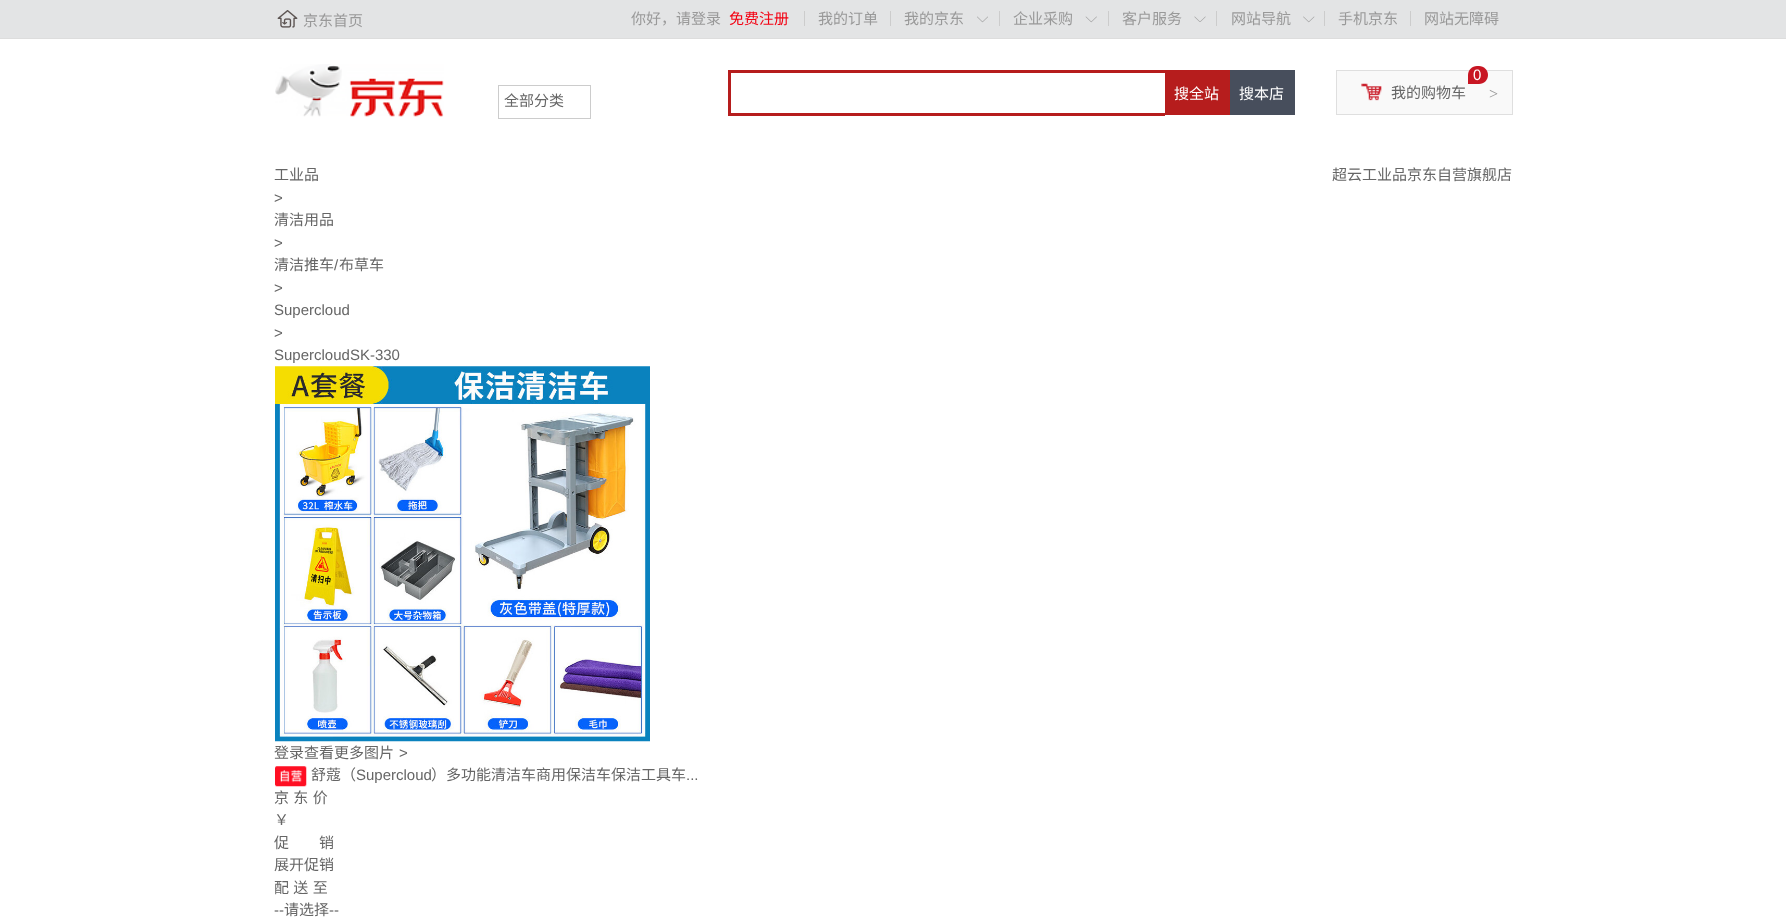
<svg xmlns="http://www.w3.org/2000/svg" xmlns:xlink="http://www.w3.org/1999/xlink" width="1786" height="923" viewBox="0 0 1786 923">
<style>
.cls-1{font:15px Noto Sans CJK SC;fill:#999999}
.cls-2{font:15px Noto Sans CJK SC;fill:#f30213}
.cls-3{font:15px Noto Sans CJK SC;fill:#666666}
.cls-4{font:15px Noto Sans CJK SC;fill:#ffffff}
.cls-5{font:15px Liberation Sans;fill:#ffffff}
.cls-6{font:16px Liberation Serif;fill:#999999}
.cls-7{font:15px Liberation Sans;fill:#666666}
</style>
<rect width="100%" height="100%" fill="#ffffff"/>
<rect fill="#e3e4e5" x="0" y="0" width="1786" height="38"/>
<rect fill="#dddddd" x="0" y="38" width="1786" height="1"/>
<image xlink:href="image0.png" x="277" y="10" width="21" height="18"/>
<rect fill="#cccccc" x="804" y="11" width="1" height="15"/>
<rect fill="#cccccc" x="890" y="11" width="1" height="15"/>
<image xlink:href="image1.png" x="977" y="16" width="11" height="7"/>
<rect fill="#cccccc" x="999" y="11" width="1" height="15"/>
<image xlink:href="image2.png" x="1085" y="16" width="12" height="7"/>
<rect fill="#cccccc" x="1108" y="11" width="1" height="15"/>
<image xlink:href="image3.png" x="1194" y="16" width="12" height="6"/>
<rect fill="#cccccc" x="1216" y="11" width="1" height="15"/>
<image xlink:href="image4.png" x="1303" y="16" width="12" height="7"/>
<rect fill="#cccccc" x="1324" y="11" width="1" height="15"/>
<rect fill="#cccccc" x="1410" y="11" width="1" height="15"/>
<image xlink:href="image5.png" x="275" y="64" width="169" height="53"/>
<rect fill="none" stroke="#cccccc" x="498.5" y="85.5" width="92" height="33"/>
<rect fill="#b61d1d" x="728" y="70" width="437" height="3"/>
<rect fill="#b61d1d" x="728" y="113" width="437" height="3"/>
<rect fill="#b61d1d" x="728" y="70" width="3" height="45"/>
<rect fill="#b61d1d" x="1165" y="70" width="65" height="45"/>
<rect fill="#474e5c" x="1230" y="70" width="65" height="45"/>
<rect fill="#f9f9f9" stroke="#dfdfdf" x="1336.5" y="70.5" width="176" height="44"/>
<path fill="#c81623" d="M1477 66H1479C1484 66 1488 70 1488 75C1488 80 1484 84 1479 84H1468V75C1468 70 1472 66 1477 66Z"/>
<image xlink:href="image6.png" x="1361" y="83" width="21" height="18"/>
<image xlink:href="image7.png" x="275" y="366" width="375" height="376"/>
<image xlink:href="image8.png" x="275" y="766" width="32" height="21"/>
<text class="cls-1" x="303" y="26">京东首页</text>
<text class="cls-1" x="631" y="24">你好，请登录</text>
<text class="cls-2" x="729" y="24">免费注册</text>
<text class="cls-1" x="818" y="24">我的订单</text>
<text class="cls-1" x="904" y="24">我的京东</text>
<text class="cls-1" x="1013" y="24">企业采购</text>
<text class="cls-1" x="1122" y="24">客户服务</text>
<text class="cls-1" x="1231" y="24">网站导航</text>
<text class="cls-1" x="1338" y="24">手机京东</text>
<text class="cls-1" x="1424" y="24">网站无障碍</text>
<text class="cls-3" x="504" y="106">全部分类</text>
<text class="cls-4" x="1174" y="99">搜全站</text>
<text class="cls-4" x="1239" y="99">搜本店</text>
<text class="cls-5" x="1473" y="80">0</text>
<text class="cls-3" x="1391" y="98">我的购物车</text>
<text class="cls-6" x="1489" y="99">&gt;</text>
<text class="cls-3" x="274" y="180">工业品</text>
<text class="cls-7" x="274" y="203">&gt;</text>
<text class="cls-3" x="274" y="225">清洁用品</text>
<text class="cls-7" x="274" y="248">&gt;</text>
<text class="cls-3" x="274" y="270">清洁推车</text>
<text class="cls-7" x="334" y="270">/</text>
<text class="cls-3" x="339" y="270">布草车</text>
<text class="cls-7"><tspan x="274" y="293">&gt;</tspan><tspan x="274" y="315">Supercloud</tspan><tspan x="274" y="338">&gt;</tspan><tspan x="274" y="360">SupercloudSK-330</tspan></text>
<text class="cls-3" x="1332" y="180">超云工业品京东自营旗舰店</text>
<text class="cls-3" x="274" y="758">登录查看更多图片</text>
<text class="cls-7" x="399" y="758">&gt;</text>
<text class="cls-3" x="311" y="780">舒蔻（</text>
<text class="cls-7" x="356" y="780">Supercloud</text>
<text class="cls-3" x="431" y="780">）多功能清洁车商用保洁车保洁工具车</text>
<text class="cls-7" x="686" y="780">...</text>
<text class="cls-3"><tspan x="274" y="803" word-spacing="1">京 东 价</tspan><tspan x="274" y="825">￥</tspan><tspan x="274" y="848">促　　销</tspan><tspan x="274" y="870">展开促销</tspan><tspan x="274" y="893" word-spacing="1">配 送 至</tspan></text>
<text class="cls-7" x="274" y="915">--</text>
<text class="cls-3" x="284" y="915">请选择</text>
<text class="cls-7" x="329" y="915">--</text>
</svg>
